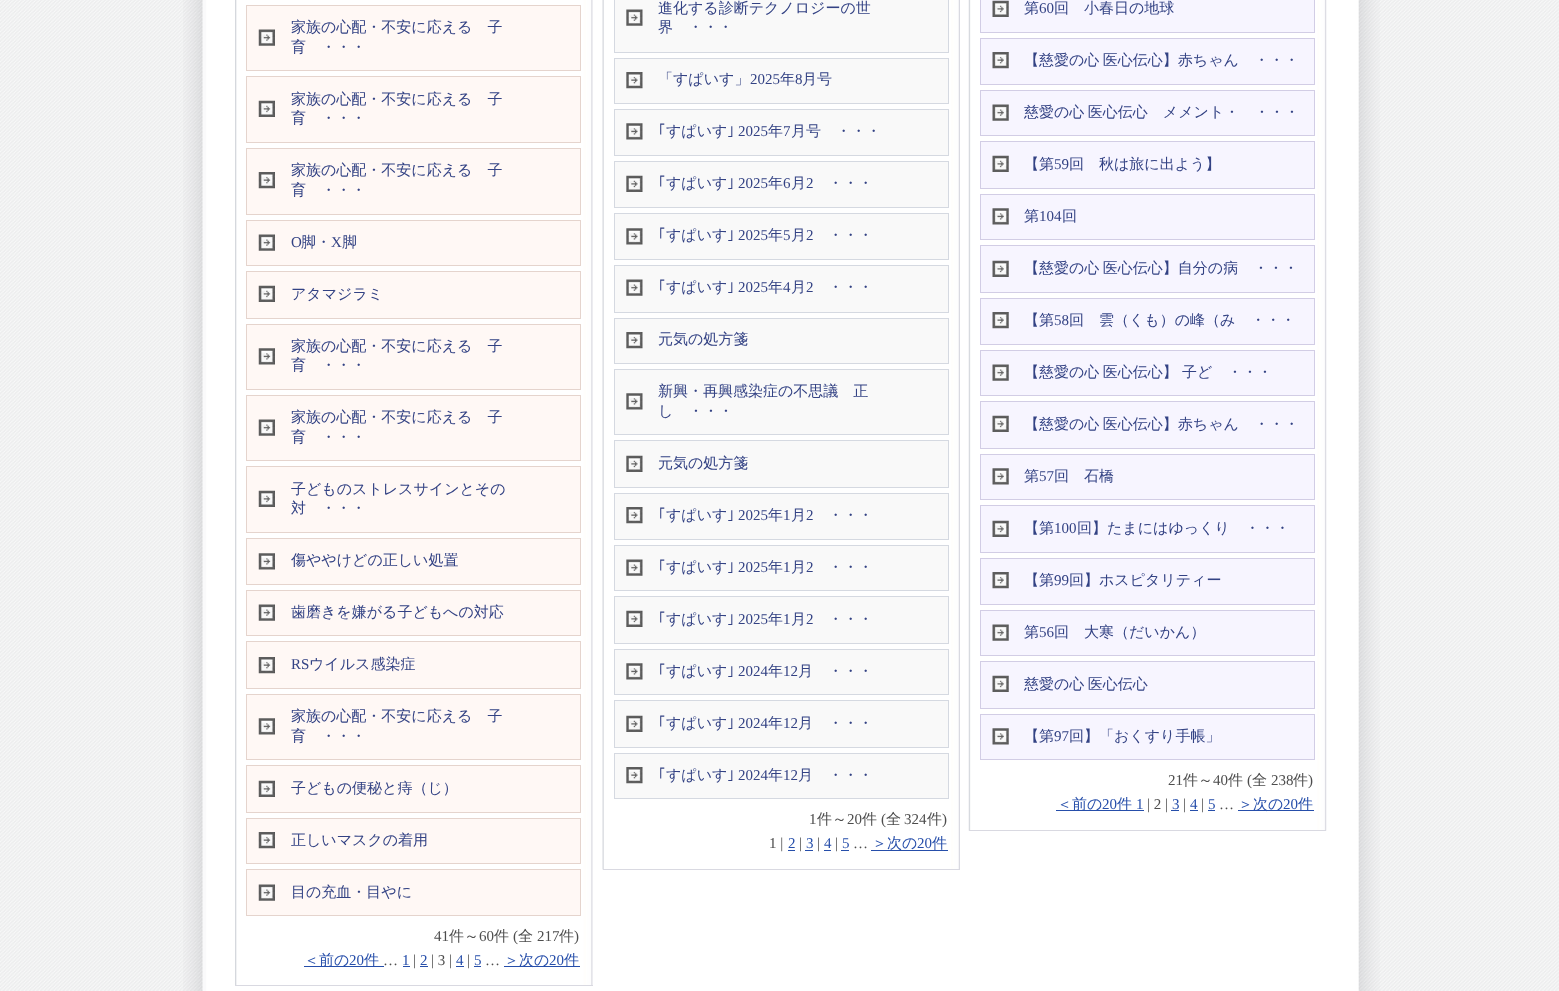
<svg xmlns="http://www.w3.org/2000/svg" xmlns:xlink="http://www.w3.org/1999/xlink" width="1559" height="991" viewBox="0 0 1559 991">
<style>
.cls-1{font:500 15px WenQuanYi Zen Hei;fill:#334284}
.cls-2{font:15px Liberation Serif;fill:#334284}
.cls-3{font:15px Liberation Serif;fill:#4d4d4d}
.cls-4{font:500 15px WenQuanYi Zen Hei;fill:#4d4d4d}
.cls-5{font:500 15px WenQuanYi Zen Hei;fill:#264eaa}
.cls-6{font:15px Liberation Serif;fill:#264eaa}
.cls-7{font:15px IPAPGothic;fill:#334284}
</style>
<rect width="100%" height="100%" fill="#ffffff"/>
<image xlink:href="image0.png" x="0" y="0" width="1559" height="991"/>
<image xlink:href="image1.png" x="183" y="0" width="1197" height="991"/>
<image xlink:href="image2.png" x="235" y="0" width="358" height="985"/>
<rect fill="#d9d9e1" x="235" y="985" width="358" height="1"/>
<rect fill="#fff8f5" x="247" y="6" width="333" height="64"/>
<image xlink:href="image3.png" x="258" y="29" width="17" height="17"/>
<rect fill="none" stroke="#e5d4cd" x="246.5" y="5.5" width="334" height="65"/>
<rect fill="#fff8f5" x="247" y="77" width="333" height="65"/>
<image xlink:href="image4.png" x="258" y="100" width="17" height="17"/>
<rect fill="none" stroke="#e5d4cd" x="246.5" y="76.5" width="334" height="66"/>
<rect fill="#fff8f5" x="247" y="149" width="333" height="65"/>
<image xlink:href="image5.png" x="258" y="172" width="17" height="17"/>
<rect fill="none" stroke="#e5d4cd" x="246.5" y="148.5" width="334" height="66"/>
<rect fill="#fff8f5" x="247" y="221" width="333" height="44"/>
<image xlink:href="image3.png" x="258" y="234" width="17" height="17"/>
<rect fill="none" stroke="#e5d4cd" x="246.5" y="220.5" width="334" height="45"/>
<rect fill="#fff8f5" x="247" y="272" width="333" height="46"/>
<image xlink:href="image4.png" x="258" y="285" width="17" height="17"/>
<rect fill="none" stroke="#e5d4cd" x="246.5" y="271.5" width="334" height="47"/>
<rect fill="#fff8f5" x="247" y="325" width="333" height="64"/>
<image xlink:href="image6.png" x="258" y="348" width="17" height="17"/>
<rect fill="none" stroke="#e5d4cd" x="246.5" y="324.5" width="334" height="65"/>
<rect fill="#fff8f5" x="247" y="396" width="333" height="64"/>
<image xlink:href="image3.png" x="258" y="419" width="17" height="17"/>
<rect fill="none" stroke="#e5d4cd" x="246.5" y="395.5" width="334" height="65"/>
<rect fill="#fff8f5" x="247" y="467" width="333" height="65"/>
<image xlink:href="image4.png" x="258" y="490" width="17" height="17"/>
<rect fill="none" stroke="#e5d4cd" x="246.5" y="466.5" width="334" height="66"/>
<rect fill="#fff8f5" x="247" y="539" width="333" height="45"/>
<image xlink:href="image6.png" x="258" y="553" width="17" height="17"/>
<rect fill="none" stroke="#e5d4cd" x="246.5" y="538.5" width="334" height="46"/>
<rect fill="#fff8f5" x="247" y="591" width="333" height="44"/>
<image xlink:href="image3.png" x="258" y="604" width="17" height="17"/>
<rect fill="none" stroke="#e5d4cd" x="246.5" y="590.5" width="334" height="45"/>
<rect fill="#fff8f5" x="247" y="642" width="333" height="46"/>
<image xlink:href="image5.png" x="258" y="657" width="17" height="17"/>
<rect fill="none" stroke="#e5d4cd" x="246.5" y="641.5" width="334" height="47"/>
<rect fill="#fff8f5" x="247" y="695" width="333" height="64"/>
<image xlink:href="image6.png" x="258" y="718" width="17" height="17"/>
<rect fill="none" stroke="#e5d4cd" x="246.5" y="694.5" width="334" height="65"/>
<rect fill="#fff8f5" x="247" y="766" width="333" height="46"/>
<image xlink:href="image4.png" x="258" y="780" width="17" height="17"/>
<rect fill="none" stroke="#e5d4cd" x="246.5" y="765.5" width="334" height="47"/>
<rect fill="#fff8f5" x="247" y="819" width="333" height="44"/>
<image xlink:href="image5.png" x="258" y="832" width="17" height="17"/>
<rect fill="none" stroke="#e5d4cd" x="246.5" y="818.5" width="334" height="45"/>
<rect fill="#fff8f5" x="247" y="870" width="333" height="45"/>
<image xlink:href="image3.png" x="258" y="884" width="17" height="17"/>
<rect fill="none" stroke="#e5d4cd" x="246.5" y="869.5" width="334" height="46"/>
<rect fill="#264eaa" x="304" y="966" width="80" height="1"/>
<rect fill="#264eaa" x="403" y="966" width="7" height="1"/>
<rect fill="#264eaa" x="420" y="966" width="8" height="1"/>
<rect fill="#264eaa" x="456" y="966" width="8" height="1"/>
<rect fill="#264eaa" x="474" y="966" width="7" height="1"/>
<rect fill="#264eaa" x="504" y="966" width="76" height="1"/>
<image xlink:href="image7.png" x="602" y="0" width="358" height="870"/>
<rect fill="#d9d9e1" x="603" y="869" width="357" height="1"/>
<rect fill="#f9f9f9" x="615" y="0" width="333" height="52"/>
<image xlink:href="image8.png" x="626" y="9" width="17" height="17"/>
<rect fill="none" stroke="#d5d9e1" x="614.5" y="-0.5" width="334" height="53"/>
<rect fill="#f9f9f9" x="615" y="59" width="333" height="44"/>
<image xlink:href="image9.png" x="626" y="72" width="17" height="17"/>
<rect fill="none" stroke="#d5d9e1" x="614.5" y="58.5" width="334" height="45"/>
<rect fill="#f9f9f9" x="615" y="110" width="333" height="45"/>
<image xlink:href="image10.png" x="626" y="123" width="17" height="17"/>
<rect fill="none" stroke="#d5d9e1" x="614.5" y="109.5" width="334" height="46"/>
<rect fill="#f9f9f9" x="615" y="162" width="333" height="45"/>
<image xlink:href="image11.png" x="626" y="175" width="17" height="17"/>
<rect fill="none" stroke="#d5d9e1" x="614.5" y="161.5" width="334" height="46"/>
<rect fill="#f9f9f9" x="615" y="214" width="333" height="45"/>
<image xlink:href="image10.png" x="626" y="228" width="17" height="17"/>
<rect fill="none" stroke="#d5d9e1" x="614.5" y="213.5" width="334" height="46"/>
<rect fill="#f9f9f9" x="615" y="266" width="333" height="46"/>
<image xlink:href="image12.png" x="626" y="279" width="17" height="17"/>
<rect fill="none" stroke="#d5d9e1" x="614.5" y="265.5" width="334" height="47"/>
<rect fill="#f9f9f9" x="615" y="319" width="333" height="44"/>
<image xlink:href="image9.png" x="626" y="332" width="17" height="17"/>
<rect fill="none" stroke="#d5d9e1" x="614.5" y="318.5" width="334" height="45"/>
<rect fill="#f9f9f9" x="615" y="370" width="333" height="64"/>
<image xlink:href="image10.png" x="626" y="393" width="17" height="17"/>
<rect fill="none" stroke="#d5d9e1" x="614.5" y="369.5" width="334" height="65"/>
<rect fill="#f9f9f9" x="615" y="441" width="333" height="46"/>
<image xlink:href="image11.png" x="626" y="455" width="17" height="17"/>
<rect fill="none" stroke="#d5d9e1" x="614.5" y="440.5" width="334" height="47"/>
<rect fill="#f9f9f9" x="615" y="494" width="333" height="45"/>
<image xlink:href="image9.png" x="626" y="507" width="17" height="17"/>
<rect fill="none" stroke="#d5d9e1" x="614.5" y="493.5" width="334" height="46"/>
<rect fill="#f9f9f9" x="615" y="546" width="333" height="44"/>
<image xlink:href="image12.png" x="626" y="559" width="17" height="17"/>
<rect fill="none" stroke="#d5d9e1" x="614.5" y="545.5" width="334" height="45"/>
<rect fill="#f9f9f9" x="615" y="597" width="333" height="46"/>
<image xlink:href="image11.png" x="626" y="610" width="17" height="17"/>
<rect fill="none" stroke="#d5d9e1" x="614.5" y="596.5" width="334" height="47"/>
<rect fill="#f9f9f9" x="615" y="650" width="333" height="44"/>
<image xlink:href="image10.png" x="626" y="663" width="17" height="17"/>
<rect fill="none" stroke="#d5d9e1" x="614.5" y="649.5" width="334" height="45"/>
<rect fill="#f9f9f9" x="615" y="701" width="333" height="46"/>
<image xlink:href="image11.png" x="626" y="715" width="17" height="17"/>
<rect fill="none" stroke="#d5d9e1" x="614.5" y="700.5" width="334" height="47"/>
<rect fill="#f9f9f9" x="615" y="754" width="333" height="44"/>
<image xlink:href="image9.png" x="626" y="767" width="17" height="17"/>
<rect fill="none" stroke="#d5d9e1" x="614.5" y="753.5" width="334" height="45"/>
<rect fill="#264eaa" x="788" y="850" width="7" height="1"/>
<rect fill="#264eaa" x="805" y="850" width="8" height="1"/>
<rect fill="#264eaa" x="824" y="850" width="7" height="1"/>
<rect fill="#264eaa" x="841" y="850" width="8" height="1"/>
<rect fill="#264eaa" x="871" y="850" width="77" height="1"/>
<image xlink:href="image13.png" x="968" y="0" width="359" height="831"/>
<rect fill="#d9d9e1" x="969" y="830" width="357" height="1"/>
<rect fill="#f7f5ff" x="981" y="0" width="333" height="32"/>
<image xlink:href="image14.png" x="992" y="0" width="17" height="17"/>
<rect fill="none" stroke="#d2cde5" x="980.5" y="-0.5" width="334" height="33"/>
<rect fill="#f7f5ff" x="981" y="39" width="333" height="45"/>
<image xlink:href="image15.png" x="992" y="52" width="17" height="17"/>
<rect fill="none" stroke="#d2cde5" x="980.5" y="38.5" width="334" height="46"/>
<rect fill="#f7f5ff" x="981" y="91" width="333" height="44"/>
<image xlink:href="image16.png" x="992" y="104" width="17" height="17"/>
<rect fill="none" stroke="#d2cde5" x="980.5" y="90.5" width="334" height="45"/>
<rect fill="#f7f5ff" x="981" y="142" width="333" height="46"/>
<image xlink:href="image14.png" x="992" y="155" width="17" height="17"/>
<rect fill="none" stroke="#d2cde5" x="980.5" y="141.5" width="334" height="47"/>
<rect fill="#f7f5ff" x="981" y="195" width="333" height="44"/>
<image xlink:href="image17.png" x="992" y="208" width="17" height="17"/>
<rect fill="none" stroke="#d2cde5" x="980.5" y="194.5" width="334" height="45"/>
<rect fill="#f7f5ff" x="981" y="246" width="333" height="46"/>
<image xlink:href="image14.png" x="992" y="260" width="17" height="17"/>
<rect fill="none" stroke="#d2cde5" x="980.5" y="245.5" width="334" height="47"/>
<rect fill="#f7f5ff" x="981" y="299" width="333" height="45"/>
<image xlink:href="image15.png" x="992" y="312" width="17" height="17"/>
<rect fill="none" stroke="#d2cde5" x="980.5" y="298.5" width="334" height="46"/>
<rect fill="#f7f5ff" x="981" y="351" width="333" height="44"/>
<image xlink:href="image16.png" x="992" y="364" width="17" height="17"/>
<rect fill="none" stroke="#d2cde5" x="980.5" y="350.5" width="334" height="45"/>
<rect fill="#f7f5ff" x="981" y="402" width="333" height="46"/>
<image xlink:href="image14.png" x="992" y="415" width="17" height="17"/>
<rect fill="none" stroke="#d2cde5" x="980.5" y="401.5" width="334" height="47"/>
<rect fill="#f7f5ff" x="981" y="455" width="333" height="44"/>
<image xlink:href="image17.png" x="992" y="468" width="17" height="17"/>
<rect fill="none" stroke="#d2cde5" x="980.5" y="454.5" width="334" height="45"/>
<rect fill="#f7f5ff" x="981" y="506" width="333" height="46"/>
<image xlink:href="image14.png" x="992" y="520" width="17" height="17"/>
<rect fill="none" stroke="#d2cde5" x="980.5" y="505.5" width="334" height="47"/>
<rect fill="#f7f5ff" x="981" y="559" width="333" height="45"/>
<image xlink:href="image15.png" x="992" y="572" width="17" height="17"/>
<rect fill="none" stroke="#d2cde5" x="980.5" y="558.5" width="334" height="46"/>
<rect fill="#f7f5ff" x="981" y="611" width="333" height="44"/>
<image xlink:href="image16.png" x="992" y="624" width="17" height="17"/>
<rect fill="none" stroke="#d2cde5" x="980.5" y="610.5" width="334" height="45"/>
<rect fill="#f7f5ff" x="981" y="662" width="333" height="46"/>
<image xlink:href="image14.png" x="992" y="675" width="17" height="17"/>
<rect fill="none" stroke="#d2cde5" x="980.5" y="661.5" width="334" height="47"/>
<rect fill="#f7f5ff" x="981" y="715" width="333" height="44"/>
<image xlink:href="image17.png" x="992" y="728" width="17" height="17"/>
<rect fill="none" stroke="#d2cde5" x="980.5" y="714.5" width="334" height="45"/>
<rect fill="#264eaa" x="1056" y="810" width="88" height="1"/>
<rect fill="#264eaa" x="1171" y="810" width="8" height="1"/>
<rect fill="#264eaa" x="1190" y="810" width="8" height="1"/>
<rect fill="#264eaa" x="1208" y="810" width="7" height="1"/>
<rect fill="#264eaa" x="1238" y="810" width="76" height="1"/>
<text class="cls-1"><tspan x="291" y="32">家族の心配・不安に応える　子</tspan><tspan x="291" y="52">育　・・・</tspan></text>
<text class="cls-1"><tspan x="291" y="104">家族の心配・不安に応える　子</tspan><tspan x="291" y="123">育　・・・</tspan></text>
<text class="cls-1"><tspan x="291" y="175">家族の心配・不安に応える　子</tspan><tspan x="291" y="195">育　・・・</tspan></text>
<text class="cls-2" x="291" y="247">O</text>
<text class="cls-1" x="301" y="247">脚・</text>
<text class="cls-2" x="331" y="247">X</text>
<text class="cls-1" x="342" y="247">脚</text>
<text class="cls-1" x="291" y="299">アタマジラミ</text>
<text class="cls-1"><tspan x="291" y="351">家族の心配・不安に応える　子</tspan><tspan x="291" y="370">育　・・・</tspan></text>
<text class="cls-1"><tspan x="291" y="422">家族の心配・不安に応える　子</tspan><tspan x="291" y="442">育　・・・</tspan></text>
<text class="cls-1"><tspan x="291" y="494">子どものストレスサインとその</tspan><tspan x="291" y="513">対　・・・</tspan></text>
<text class="cls-1" x="291" y="565">傷ややけどの正しい処置</text>
<text class="cls-1" x="291" y="617">歯磨きを嫌がる子どもへの対応</text>
<text class="cls-2" x="291" y="669">RS</text>
<text class="cls-1" x="309" y="669">ウイルス感染症</text>
<text class="cls-1"><tspan x="291" y="721">家族の心配・不安に応える　子</tspan><tspan x="291" y="741">育　・・・</tspan></text>
<text class="cls-1" x="291" y="793">子どもの便秘と痔（じ）</text>
<text class="cls-1" x="291" y="845">正しいマスクの着用</text>
<text class="cls-1" x="291" y="897">目の充血・目やに</text>
<text class="cls-3" x="434" y="941">41</text>
<text class="cls-4" x="449" y="941">件～</text>
<text class="cls-3" x="479" y="941">60</text>
<text class="cls-4" x="494" y="941">件</text>
<text class="cls-3" x="513" y="941">(</text>
<text class="cls-4" x="518" y="941">全</text>
<text class="cls-3" x="537" y="941">217</text>
<text class="cls-4" x="559" y="941">件</text>
<text class="cls-3" x="574" y="941">)</text>
<text class="cls-5" x="304" y="965">＜前の</text>
<text class="cls-6" x="349" y="965">20</text>
<text class="cls-5" x="364" y="965">件</text>
<text class="cls-3" x="383" y="965">…</text>
<text class="cls-6" x="402" y="965">1</text>
<text class="cls-3" x="413" y="965">|</text>
<text class="cls-6" x="420" y="965">2</text>
<text class="cls-3" x="431" y="965">| 3 |</text>
<text class="cls-6" x="456" y="965">4</text>
<text class="cls-3" x="467" y="965">|</text>
<text class="cls-6" x="474" y="965">5</text>
<text class="cls-3" x="485" y="965">…</text>
<text class="cls-5" x="504" y="965">＞次の</text>
<text class="cls-6" x="549" y="965">20</text>
<text class="cls-5" x="564" y="965">件</text>
<text class="cls-1"><tspan x="658" y="13">進化する診断テクノロジーの世</tspan><tspan x="658" y="32">界　・・・</tspan></text>
<text class="cls-1" x="658" y="84">「すぱいす」</text>
<text class="cls-2" x="750" y="84">2025</text>
<text class="cls-1" x="780" y="84">年</text>
<text class="cls-2" x="795" y="84">8</text>
<text class="cls-1" x="802" y="84">月号</text>
<text class="cls-7" x="658" y="136">｢</text>
<text class="cls-1" x="666" y="136">すぱいす</text>
<text class="cls-7" x="727" y="136">｣</text>
<text class="cls-2" x="738" y="136">2025</text>
<text class="cls-1" x="768" y="136">年</text>
<text class="cls-2" x="783" y="136">7</text>
<text class="cls-1" x="791" y="136">月号　・・・</text>
<text class="cls-7" x="658" y="188">｢</text>
<text class="cls-1" x="666" y="188">すぱいす</text>
<text class="cls-7" x="727" y="188">｣</text>
<text class="cls-2" x="738" y="188">2025</text>
<text class="cls-1" x="768" y="188">年</text>
<text class="cls-2" x="783" y="188">6</text>
<text class="cls-1" x="791" y="188">月</text>
<text class="cls-2" x="806" y="188">2</text>
<text class="cls-1" x="828" y="188">・・・</text>
<text class="cls-7" x="658" y="240">｢</text>
<text class="cls-1" x="666" y="240">すぱいす</text>
<text class="cls-7" x="727" y="240">｣</text>
<text class="cls-2" x="738" y="240">2025</text>
<text class="cls-1" x="768" y="240">年</text>
<text class="cls-2" x="783" y="240">5</text>
<text class="cls-1" x="791" y="240">月</text>
<text class="cls-2" x="806" y="240">2</text>
<text class="cls-1" x="828" y="240">・・・</text>
<text class="cls-7" x="658" y="292">｢</text>
<text class="cls-1" x="666" y="292">すぱいす</text>
<text class="cls-7" x="727" y="292">｣</text>
<text class="cls-2" x="738" y="292">2025</text>
<text class="cls-1" x="768" y="292">年</text>
<text class="cls-2" x="783" y="292">4</text>
<text class="cls-1" x="791" y="292">月</text>
<text class="cls-2" x="806" y="292">2</text>
<text class="cls-1" x="828" y="292">・・・</text>
<text class="cls-1" x="658" y="344">元気の処方箋</text>
<text class="cls-1"><tspan x="658" y="396">新興・再興感染症の不思議　正</tspan><tspan x="658" y="416">し　・・・</tspan></text>
<text class="cls-1" x="658" y="468">元気の処方箋</text>
<text class="cls-7" x="658" y="520">｢</text>
<text class="cls-1" x="666" y="520">すぱいす</text>
<text class="cls-7" x="727" y="520">｣</text>
<text class="cls-2" x="738" y="520">2025</text>
<text class="cls-1" x="768" y="520">年</text>
<text class="cls-2" x="783" y="520">1</text>
<text class="cls-1" x="791" y="520">月</text>
<text class="cls-2" x="806" y="520">2</text>
<text class="cls-1" x="828" y="520">・・・</text>
<text class="cls-7" x="658" y="572">｢</text>
<text class="cls-1" x="666" y="572">すぱいす</text>
<text class="cls-7" x="727" y="572">｣</text>
<text class="cls-2" x="738" y="572">2025</text>
<text class="cls-1" x="768" y="572">年</text>
<text class="cls-2" x="783" y="572">1</text>
<text class="cls-1" x="791" y="572">月</text>
<text class="cls-2" x="806" y="572">2</text>
<text class="cls-1" x="828" y="572">・・・</text>
<text class="cls-7" x="658" y="624">｢</text>
<text class="cls-1" x="666" y="624">すぱいす</text>
<text class="cls-7" x="727" y="624">｣</text>
<text class="cls-2" x="738" y="624">2025</text>
<text class="cls-1" x="768" y="624">年</text>
<text class="cls-2" x="783" y="624">1</text>
<text class="cls-1" x="791" y="624">月</text>
<text class="cls-2" x="806" y="624">2</text>
<text class="cls-1" x="828" y="624">・・・</text>
<text class="cls-7" x="658" y="676">｢</text>
<text class="cls-1" x="666" y="676">すぱいす</text>
<text class="cls-7" x="727" y="676">｣</text>
<text class="cls-2" x="738" y="676">2024</text>
<text class="cls-1" x="768" y="676">年</text>
<text class="cls-2" x="783" y="676">12</text>
<text class="cls-1" x="798" y="676">月　・・・</text>
<text class="cls-7" x="658" y="728">｢</text>
<text class="cls-1" x="666" y="728">すぱいす</text>
<text class="cls-7" x="727" y="728">｣</text>
<text class="cls-2" x="738" y="728">2024</text>
<text class="cls-1" x="768" y="728">年</text>
<text class="cls-2" x="783" y="728">12</text>
<text class="cls-1" x="798" y="728">月　・・・</text>
<text class="cls-7" x="658" y="780">｢</text>
<text class="cls-1" x="666" y="780">すぱいす</text>
<text class="cls-7" x="727" y="780">｣</text>
<text class="cls-2" x="738" y="780">2024</text>
<text class="cls-1" x="768" y="780">年</text>
<text class="cls-2" x="783" y="780">12</text>
<text class="cls-1" x="798" y="780">月　・・・</text>
<text class="cls-3" x="809" y="824">1</text>
<text class="cls-4" x="817" y="824">件～</text>
<text class="cls-3" x="847" y="824">20</text>
<text class="cls-4" x="862" y="824">件</text>
<text class="cls-3" x="881" y="824">(</text>
<text class="cls-4" x="886" y="824">全</text>
<text class="cls-3" x="904" y="824">324</text>
<text class="cls-4" x="927" y="824">件</text>
<text class="cls-3" x="942" y="824">)</text>
<text class="cls-3" x="769" y="848">1 |</text>
<text class="cls-6" x="788" y="848">2</text>
<text class="cls-3" x="799" y="848">|</text>
<text class="cls-6" x="806" y="848">3</text>
<text class="cls-3" x="817" y="848">|</text>
<text class="cls-6" x="824" y="848">4</text>
<text class="cls-3" x="835" y="848">|</text>
<text class="cls-6" x="842" y="848">5</text>
<text class="cls-3" x="853" y="848">…</text>
<text class="cls-5" x="872" y="848">＞次の</text>
<text class="cls-6" x="917" y="848">20</text>
<text class="cls-5" x="932" y="848">件</text>
<text class="cls-1" x="1024" y="13">第</text>
<text class="cls-2" x="1039" y="13">60</text>
<text class="cls-1" x="1054" y="13">回　小春日の地球</text>
<text class="cls-1" x="1024" y="65" word-spacing="-1">【慈愛の心 医心伝心】赤ちゃん　・・・</text>
<text class="cls-1" x="1024" y="117" word-spacing="-1">慈愛の心 医心伝心　メメント・　・・・</text>
<text class="cls-1" x="1024" y="169">【第</text>
<text class="cls-2" x="1054" y="169">59</text>
<text class="cls-1" x="1069" y="169">回　秋は旅に出よう】</text>
<text class="cls-1" x="1024" y="221">第</text>
<text class="cls-2" x="1039" y="221">104</text>
<text class="cls-1" x="1062" y="221">回</text>
<text class="cls-1" x="1024" y="273" word-spacing="-1">【慈愛の心 医心伝心】自分の病　・・・</text>
<text class="cls-1" x="1024" y="325">【第</text>
<text class="cls-2" x="1054" y="325">58</text>
<text class="cls-1" x="1069" y="325">回　雲（くも）の峰（み　・・・</text>
<text class="cls-1" x="1024" y="377" word-spacing="-1">【慈愛の心 医心伝心】</text>
<text class="cls-1" x="1182" y="377">子ど　・・・</text>
<text class="cls-1" x="1024" y="429" word-spacing="-1">【慈愛の心 医心伝心】赤ちゃん　・・・</text>
<text class="cls-1" x="1024" y="481">第</text>
<text class="cls-2" x="1039" y="481">57</text>
<text class="cls-1" x="1054" y="481">回　石橋</text>
<text class="cls-1" x="1024" y="533">【第</text>
<text class="cls-2" x="1054" y="533">100</text>
<text class="cls-1" x="1077" y="533">回】たまにはゆっくり　・・・</text>
<text class="cls-1" x="1024" y="585">【第</text>
<text class="cls-2" x="1054" y="585">99</text>
<text class="cls-1" x="1069" y="585">回】ホスピタリティー</text>
<text class="cls-1" x="1024" y="637">第</text>
<text class="cls-2" x="1039" y="637">56</text>
<text class="cls-1" x="1054" y="637">回　大寒（だいかん）</text>
<text class="cls-1" x="1024" y="689" word-spacing="-1">慈愛の心 医心伝心</text>
<text class="cls-1" x="1024" y="741">【第</text>
<text class="cls-2" x="1054" y="741">97</text>
<text class="cls-1" x="1069" y="741">回】「おくすり手帳」</text>
<text class="cls-3" x="1168" y="785">21</text>
<text class="cls-4" x="1183" y="785">件～</text>
<text class="cls-3" x="1213" y="785">40</text>
<text class="cls-4" x="1228" y="785">件</text>
<text class="cls-3" x="1247" y="785">(</text>
<text class="cls-4" x="1252" y="785">全</text>
<text class="cls-3" x="1271" y="785">238</text>
<text class="cls-4" x="1293" y="785">件</text>
<text class="cls-3" x="1308" y="785">)</text>
<text class="cls-5" x="1057" y="809">＜前の</text>
<text class="cls-6" x="1102" y="809">20</text>
<text class="cls-5" x="1117" y="809">件</text>
<text class="cls-6" x="1136" y="809">1</text>
<text class="cls-3" x="1147" y="809">| 2 |</text>
<text class="cls-6" x="1172" y="809">3</text>
<text class="cls-3" x="1183" y="809">|</text>
<text class="cls-6" x="1190" y="809">4</text>
<text class="cls-3" x="1201" y="809">|</text>
<text class="cls-6" x="1208" y="809">5</text>
<text class="cls-3" x="1219" y="809">…</text>
<text class="cls-5" x="1238" y="809">＞次の</text>
<text class="cls-6" x="1283" y="809">20</text>
<text class="cls-5" x="1298" y="809">件</text>
</svg>
